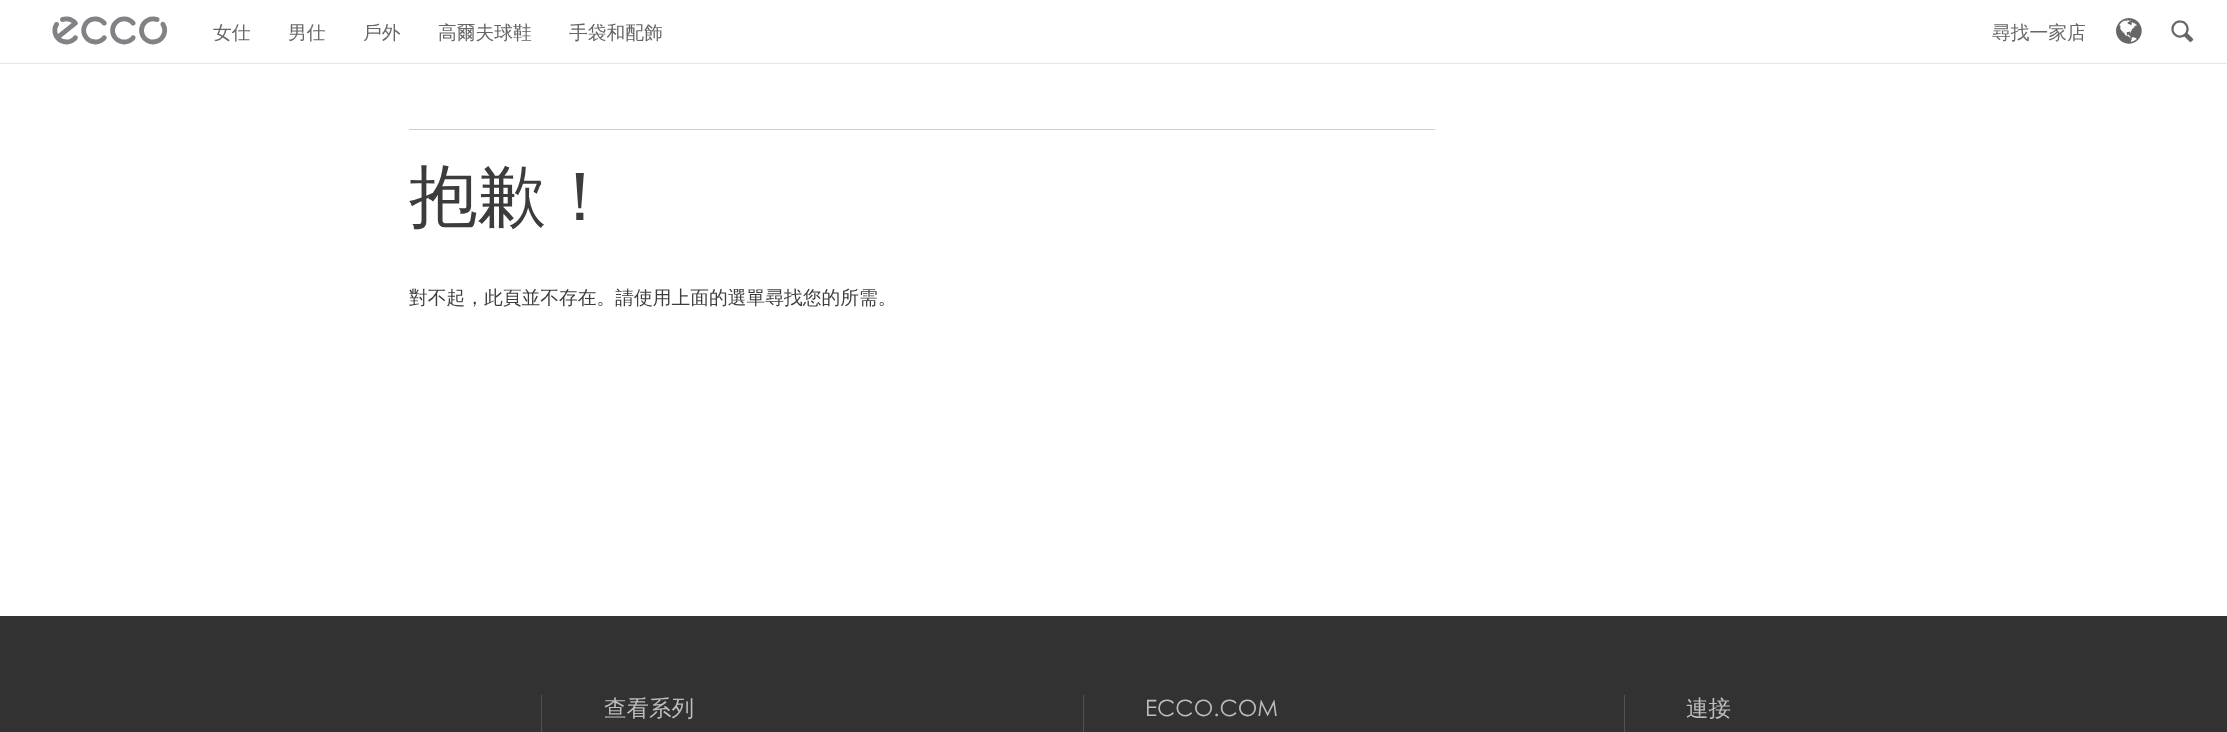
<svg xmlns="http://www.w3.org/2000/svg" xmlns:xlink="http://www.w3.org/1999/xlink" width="2227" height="732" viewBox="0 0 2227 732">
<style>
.cls-1{font:30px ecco;fill:#808285}
.cls-2{font:500 18.75px WenQuanYi Zen Hei;fill:#666666}
.cls-3{font:30px ecco;fill:#666666}
.cls-4{font:22.5px ecco;fill:#666666}
.cls-5{font:500 68.5px WenQuanYi Zen Hei;fill:#3c3c3c}
.cls-6{font:500 18.75px WenQuanYi Zen Hei;fill:#3c3c3c}
.cls-7{font:500 22.5px WenQuanYi Zen Hei;fill:#bdbdbd}
.cls-8{font:22.5px Century Gothic;fill:#bdbdbd}
</style>
<rect width="100%" height="100%" fill="#ffffff"/>
<path fill="#e6e6e6" d="M0 62V64H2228V1V62Z"/>
<rect fill="#ffffff" x="0" y="62" width="2227" height="1"/>
<rect fill="#cecece" x="409" y="129" width="1026" height="1"/>
<rect fill="#323232" x="0" y="616" width="2227" height="116"/>
<rect fill="#515151" x="541" y="695" width="1" height="37"/>
<rect fill="#515151" x="1083" y="695" width="1" height="37"/>
<rect fill="#515151" x="1624" y="695" width="1" height="37"/>
<text class="cls-1" x="51" y="44">!</text>
<text class="cls-2" x="213" y="39">女仕</text>
<text class="cls-2" x="288" y="39">男仕</text>
<text class="cls-2" x="363" y="39">戶外</text>
<text class="cls-2" x="438" y="39">高爾夫球鞋</text>
<text class="cls-2" x="569" y="39">手袋和配飾</text>
<text class="cls-2" x="1992" y="39">尋找一家店</text>
<text class="cls-3" x="2116" y="44">%</text>
<text class="cls-4" x="2171" y="41">#</text>
<text class="cls-5" x="409" y="220">抱歉！</text>
<text class="cls-6" x="409" y="304">對不起，此頁並不存在。請使用上面的選單尋找您的所需。</text>
<text class="cls-7" x="604" y="716">查看系列</text>
<text class="cls-8" x="1145" y="716">ECCO.COM</text>
<text class="cls-7" x="1686" y="716">連接</text>
</svg>
